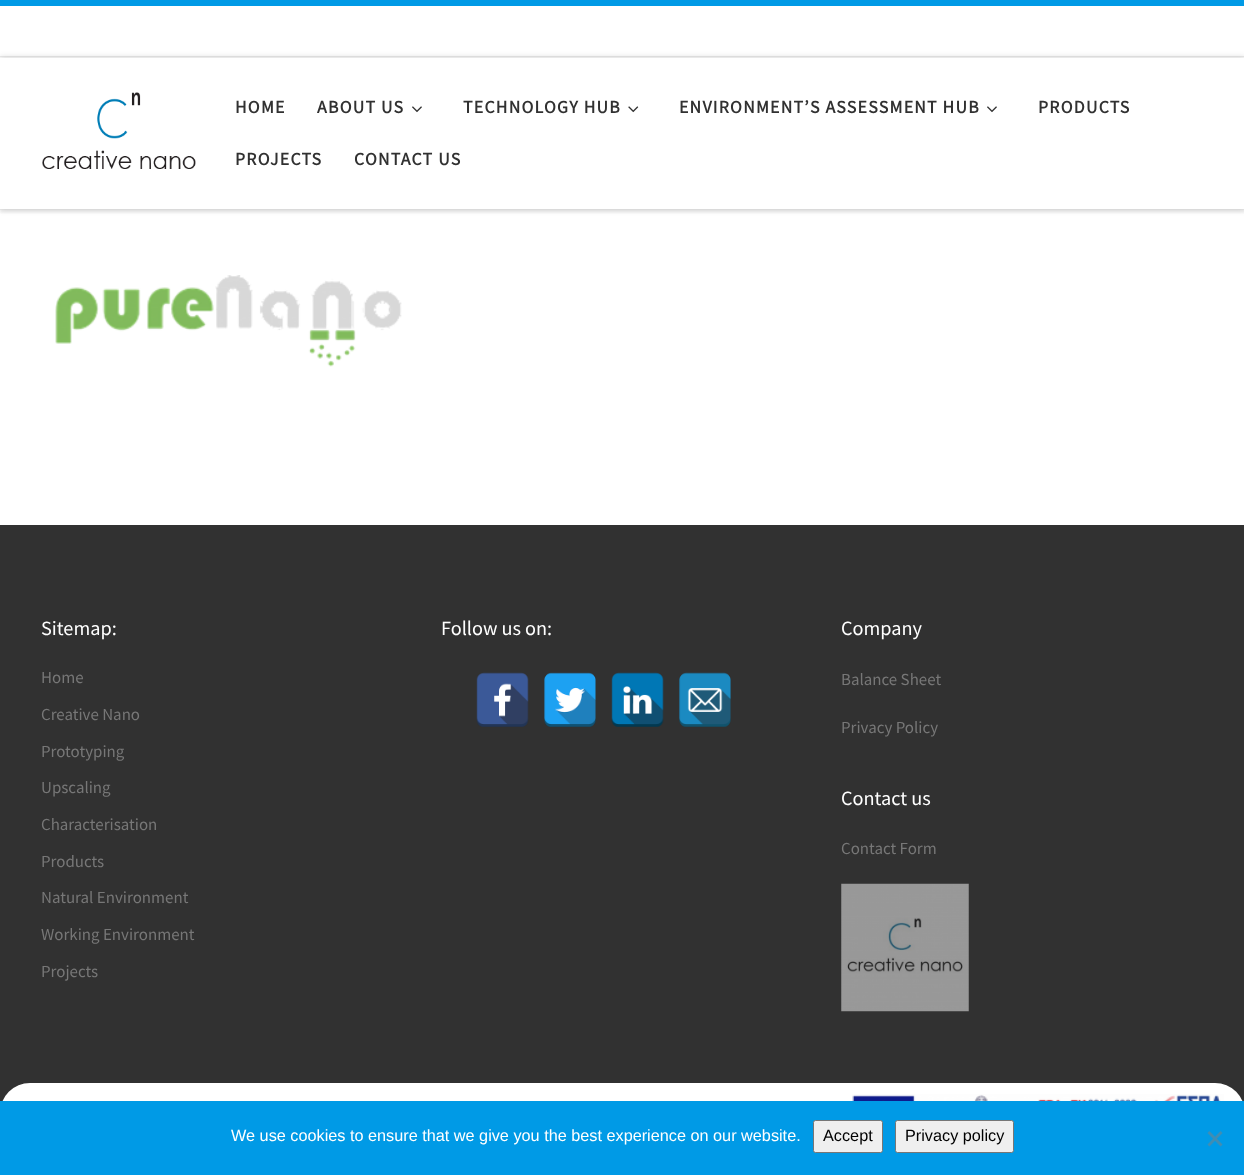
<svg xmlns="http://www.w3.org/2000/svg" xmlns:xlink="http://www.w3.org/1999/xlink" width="1244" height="1175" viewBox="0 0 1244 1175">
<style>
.cls-1{font:bold 17.8px Source Sans Pro;letter-spacing:1.25px;fill:#313131}
.cls-2{font:20.25px Source Sans Pro;fill:#ffffff}
.cls-3{font:16.9px Source Sans Pro;fill:#777777}
.cls-4{font:16.25px Liberation Sans;fill:#ffffff}
.cls-5{font:16.25px Liberation Sans;fill:#000000}
</style>
<defs>
<clipPath id="clip1"><rect x="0" y="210" width="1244" height="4"/></clipPath>
</defs>
<rect width="100%" height="100%" fill="#ffffff"/>
<g clip-path="url(#clip1)">
<rect fill="#666666" fill-opacity="0.08" filter="blur(1px)" x="0" y="3" width="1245" height="210"/>
</g>
<rect fill="#009ae6" x="0" y="0" width="1244" height="6"/>
<rect fill="#ececec" x="0" y="56" width="1244" height="1"/>
<rect fill="#efefef" x="0" y="209" width="1244" height="1"/>
<rect fill="#000000" fill-opacity="0.2" filter="blur(3px)" x="0" y="58" width="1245" height="151"/>
<rect fill="#ffffff" x="0" y="58" width="1244" height="151"/>
<image xlink:href="image0.png" x="42" y="92" width="154" height="77"/>
<image xlink:href="image1.png" x="412" y="106" width="10" height="7"/>
<image xlink:href="image2.png" x="628" y="106" width="11" height="7"/>
<image xlink:href="image1.png" x="987" y="106" width="10" height="7"/>
<image xlink:href="image3.png" x="55" y="275" width="347" height="92"/>
<rect fill="#313131" x="0" y="525" width="1244" height="576"/>
<image xlink:href="image4.png" x="476" y="672" width="53" height="55"/>
<image xlink:href="image5.png" x="544" y="672" width="52" height="55"/>
<image xlink:href="image6.png" x="611" y="672" width="53" height="55"/>
<image xlink:href="image7.png" x="679" y="672" width="52" height="55"/>
<image xlink:href="image8.png" x="841" y="883" width="128" height="129"/>
<rect fill="#ffffff" x="0" y="1083" width="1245" height="92" rx="30"/>
<image xlink:href="image9.png" x="852" y="1094" width="372" height="7"/>
<rect fill="#009ae6" x="0" y="1101" width="1244" height="74"/>
<rect fill="#efefef" stroke="#767676" x="813.5" y="1120.5" width="69" height="32" rx="2"/>
<rect fill="#efefef" stroke="#767676" x="895.5" y="1120.5" width="118" height="32" rx="2"/>
<path fill="#408db3" d="M1220.5 1131L1222.5 1133L1209.5 1146.5L1207.5 1144.5Z"/>
<path fill="#408db3" d="M1207.5 1133L1209.5 1131L1222.5 1144.5L1220.5 1146.5Z"/>
<text class="cls-1" x="235" y="113">HOME</text>
<text class="cls-1" x="317" y="113">ABOUT US</text>
<text class="cls-1" x="463" y="113">TECHNOLOGY HUB</text>
<text class="cls-1" x="679" y="113">ENVIRONMENT’S ASSESSMENT HUB</text>
<text class="cls-1" x="1038" y="113">PRODUCTS</text>
<text class="cls-1" x="235" y="165">PROJECTS</text>
<text class="cls-1" x="354" y="165">CONTACT US</text>
<text class="cls-2" x="41" y="635">Sitemap:</text>
<text class="cls-3" x="41" y="683">Home</text>
<text class="cls-3" x="41" y="720">Creative Nano</text>
<text class="cls-3" x="41" y="757">Prototyping</text>
<text class="cls-3" x="41" y="793">Upscaling</text>
<text class="cls-3" x="41" y="830">Characterisation</text>
<text class="cls-3" x="41" y="867">Products</text>
<text class="cls-3" x="41" y="903">Natural Environment</text>
<text class="cls-3" x="41" y="940">Working Environment</text>
<text class="cls-3" x="41" y="977">Projects</text>
<text class="cls-2" x="441" y="635">Follow us on:</text>
<text class="cls-2" x="841" y="635">Company</text>
<text class="cls-3" x="841" y="685">Balance Sheet</text>
<text class="cls-3" x="841" y="733">Privacy Policy</text>
<text class="cls-2" x="841" y="805">Contact us</text>
<text class="cls-3" x="841" y="854">Contact Form</text>
<text class="cls-4" x="231" y="1141">We use cookies to ensure that we give you the best experience on our website.</text>
<text class="cls-5" x="823" y="1141">Accept</text>
<text class="cls-5" x="905" y="1141">Privacy policy</text>
</svg>
